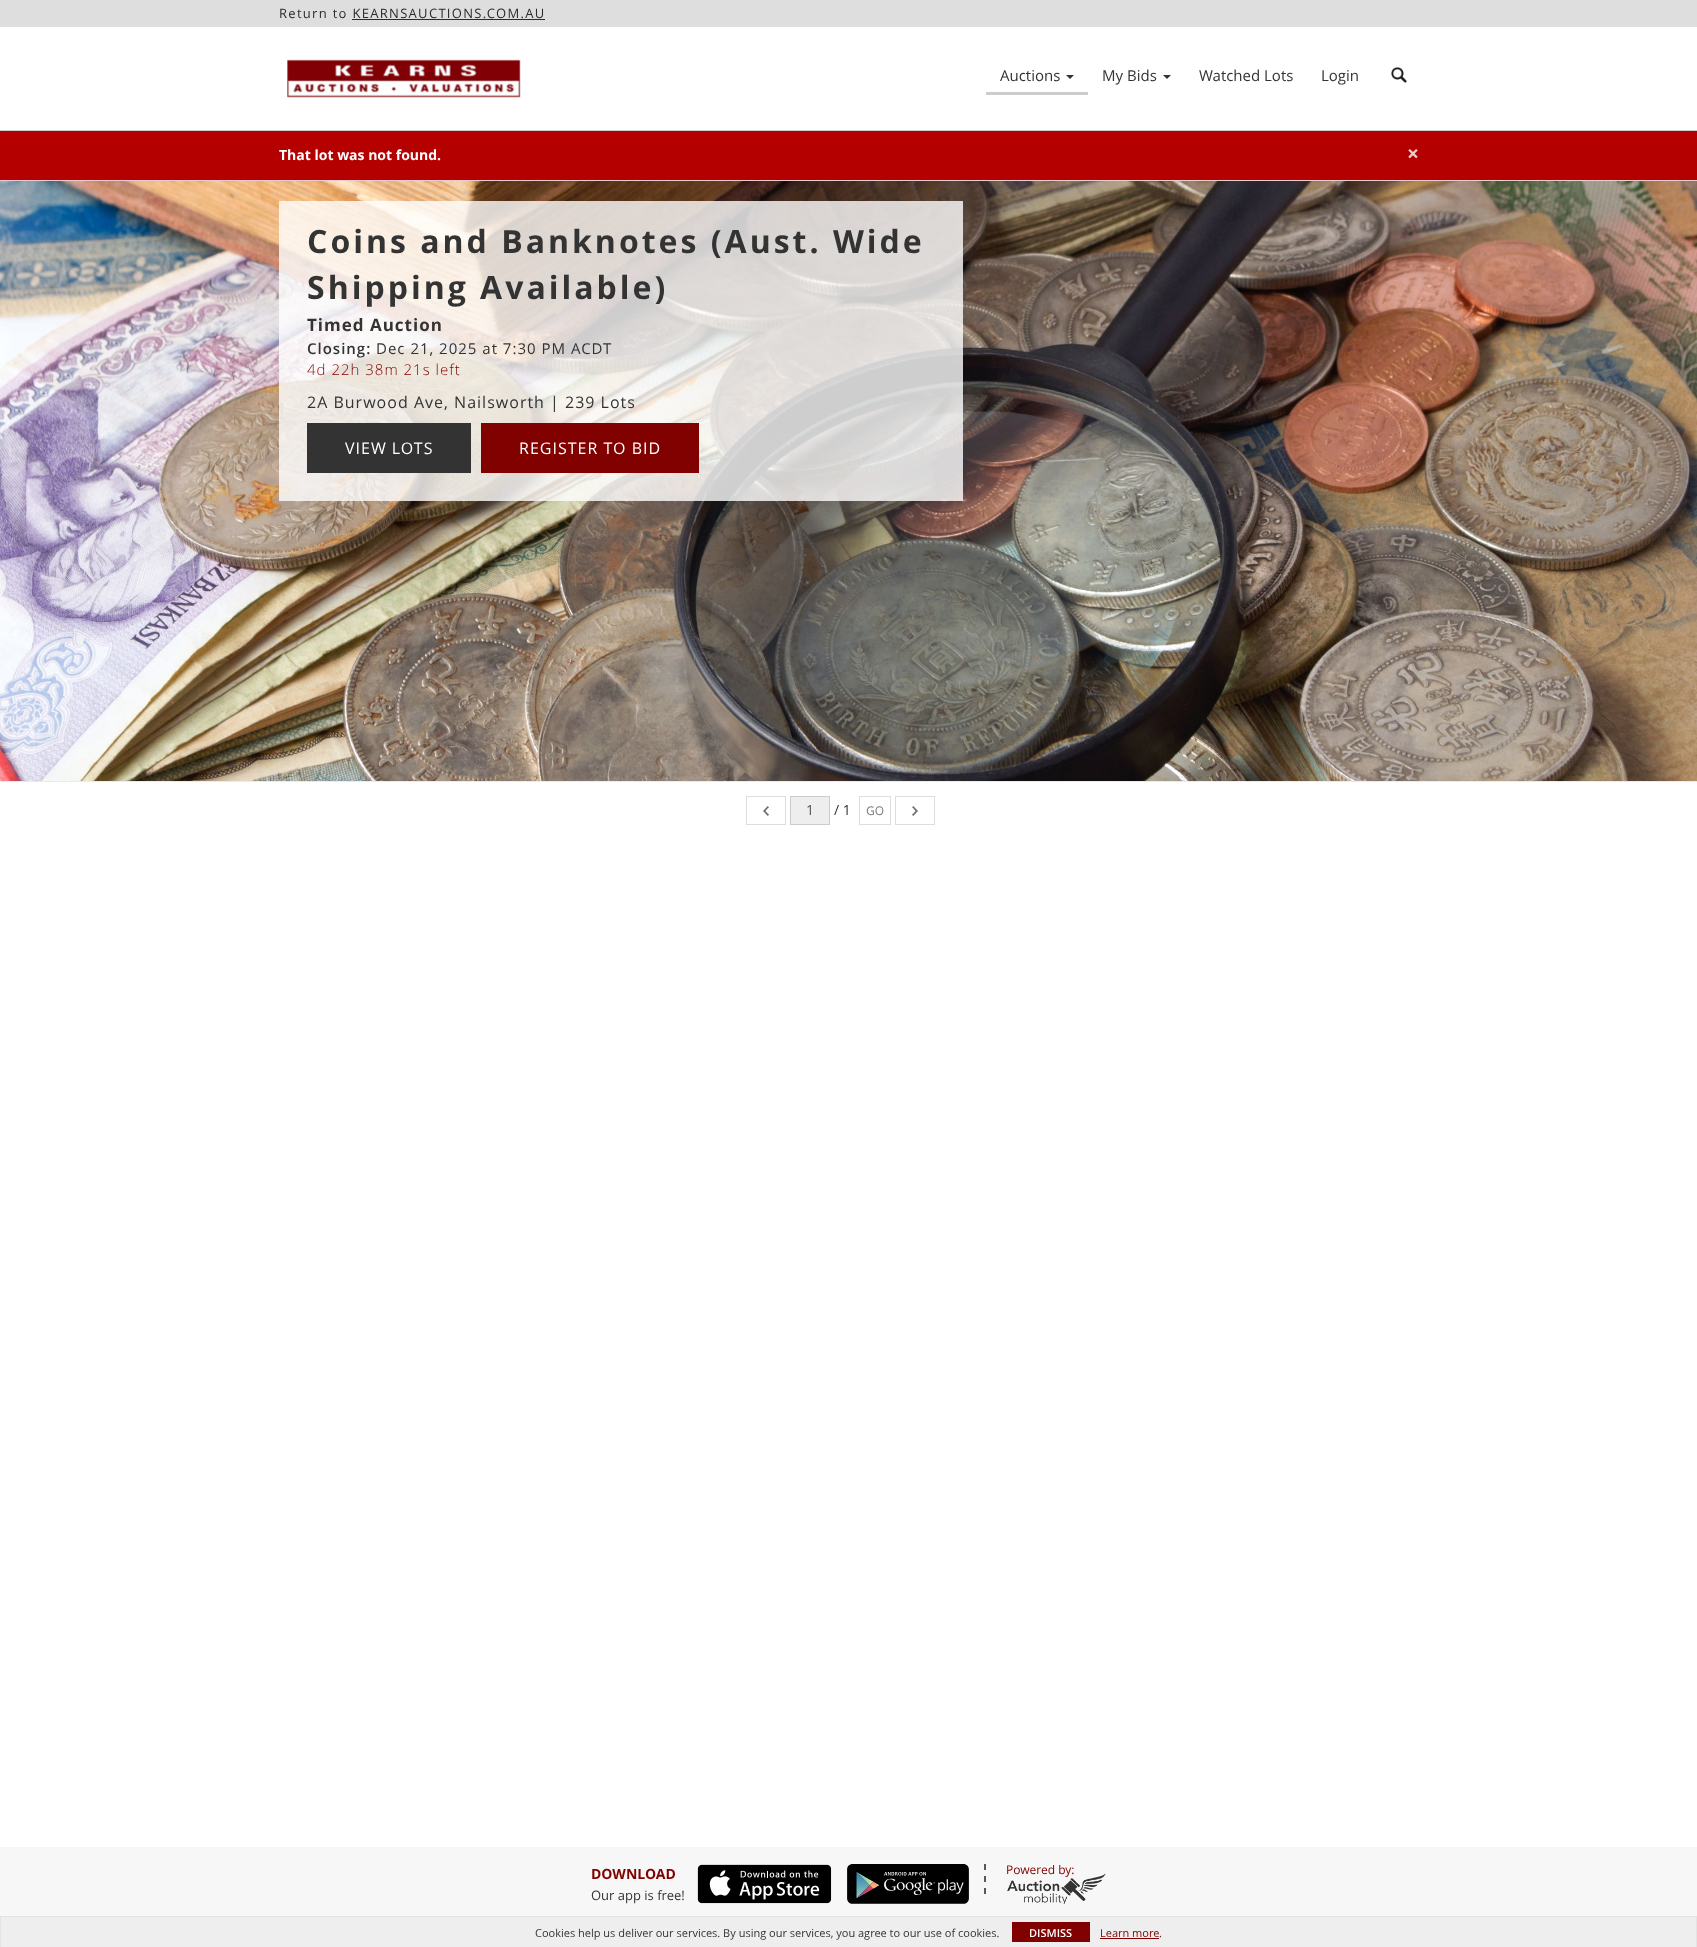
<svg xmlns="http://www.w3.org/2000/svg" xmlns:xlink="http://www.w3.org/1999/xlink" width="1697" height="1947" viewBox="0 0 1697 1947">
<style>
.cls-1{font:13px Open Sans;letter-spacing:1.3px;fill:#2b2b2b}
.cls-2{font:15px Open Sans;fill:#333333}
.cls-3{font:bold 14px Open Sans;fill:#ffffff}
.cls-4{font:bold 21px Open Sans;fill:#f0cccc}
.cls-5{font:bold 32px Open Sans;letter-spacing:3px;fill:#333333}
.cls-6{font:bold 17px Open Sans;letter-spacing:1px;fill:#333333}
.cls-7{font:600 15px Open Sans;letter-spacing:1px;fill:#333333}
.cls-8{font:15px Open Sans;letter-spacing:1px;fill:#333333}
.cls-9{font:300 15px Open Sans;letter-spacing:1px;fill:#810000}
.cls-10{font:16px Open Sans;letter-spacing:1px;fill:#333333}
.cls-11{font:16px Open Sans;letter-spacing:1px;fill:#ffffff}
.cls-12{font:14px Open Sans;fill:#555555}
.cls-13{font:14px Open Sans;fill:#333333}
.cls-14{font:12px Open Sans;fill:#7a7a7a}
.cls-15{font:bold 14px Open Sans;fill:#810000}
.cls-16{font:13px Open Sans;fill:#333333}
.cls-17{font:12px Open Sans;fill:#810000}
.cls-18{font:11px Open Sans;fill:#333333}
.cls-19{font:600 11px Open Sans;fill:#ffffff}
.cls-20{font:11px Open Sans;fill:#810000}
</style>
<rect width="100%" height="100%" fill="#ffffff"/>
<rect fill="#dedede" x="0" y="0" width="1697" height="27"/>
<rect fill="#2b2b2b" x="352" y="19" width="193" height="1"/>
<image xlink:href="image0.png" x="287" y="59" width="234" height="39"/>
<rect fill="#cccccc" x="986" y="92" width="102" height="3"/>
<path fill="#333333" d="M1066 75H1074L1070 79Z"/>
<path fill="#333333" d="M1163 75H1171L1167 79Z"/>
<image xlink:href="image1.png" x="1391" y="67" width="16" height="16"/>
<rect fill="#cccccc" x="0" y="130" width="1697" height="1"/>
<rect fill="#b50000" x="0" y="131" width="1697" height="49"/>
<rect fill="#ebccd1" x="0" y="180" width="1697" height="1"/>
<image xlink:href="image2.png" x="0" y="181" width="1697" height="600"/>
<rect fill="#ffffff" fill-opacity="0.8" x="279" y="201" width="684" height="300"/>
<rect fill="#333333" x="307" y="423" width="164" height="50"/>
<rect fill="#810000" x="481" y="423" width="218" height="50"/>
<rect fill="#ebebeb" x="0" y="781" width="1697" height="1"/>
<rect fill="none" stroke="#dedede" x="746.5" y="796.5" width="39" height="28"/>
<image xlink:href="image3.png" x="763" y="806" width="6" height="10"/>
<rect fill="#eeeeee" stroke="#cccccc" x="790.5" y="796.5" width="39" height="28"/>
<rect fill="none" stroke="#dedede" x="859.5" y="796.5" width="31" height="28"/>
<rect fill="none" stroke="#dedede" x="895.5" y="796.5" width="39" height="28"/>
<image xlink:href="image4.png" x="912" y="806" width="6" height="10"/>
<rect fill="#f7f7f7" x="0" y="1847" width="1697" height="69"/>
<image xlink:href="image5.png" x="697" y="1864" width="135" height="40"/>
<image xlink:href="image6.png" x="847" y="1864" width="122" height="40"/>
<path fill="none" stroke="#595959" stroke-width="2" d="M985 1864V1870M985 1876V1882M985 1888V1894"/>
<rect fill="#eeeeee" x="1" y="1917" width="1695" height="30"/>
<rect fill="#e4e4e4" x="0" y="1916" width="1697" height="1"/>
<rect fill="#e4e4e4" x="1696" y="1916" width="1" height="31"/>
<rect fill="#e4e4e4" x="0" y="1916" width="1" height="31"/>
<rect fill="#810000" x="1012" y="1922" width="78" height="20"/>
<rect fill="#810000" x="1100" y="1938" width="59" height="1"/>
<text class="cls-1" x="279" y="18">Return to KEARNSAUCTIONS.COM.AU</text>
<text class="cls-2" x="1000" y="81">Auctions</text>
<text class="cls-2" x="1102" y="81">My Bids</text>
<text class="cls-2" x="1199" y="81">Watched Lots</text>
<text class="cls-2" x="1321" y="81">Login</text>
<text class="cls-3" x="279" y="160">That lot was not found.</text>
<text class="cls-4" x="1407" y="161">×</text>
<text class="cls-5"><tspan x="307" y="253">Coins and Banknotes (Aust. Wide</tspan><tspan x="307" y="299">Shipping Available)</tspan></text>
<text class="cls-6" x="307" y="331">Timed Auction</text>
<text class="cls-7" x="307" y="354">Closing:</text>
<text class="cls-8" x="376" y="354">Dec 21, 2025 at 7:30 PM ACDT</text>
<text class="cls-9" x="307" y="375">4d 22h 38m 21s left</text>
<text class="cls-10" x="307" y="408">2A Burwood Ave, Nailsworth | 239 Lots</text>
<text class="cls-11" x="345" y="454">VIEW LOTS</text>
<text class="cls-11" x="519" y="454">REGISTER TO BID</text>
<text class="cls-12" x="806" y="815">1</text>
<text class="cls-13" x="834" y="815">/ 1</text>
<text class="cls-14" x="866" y="815">GO</text>
<text class="cls-15" x="591" y="1879">DOWNLOAD</text>
<text class="cls-16" x="591" y="1900">Our app is free!</text>
<text class="cls-17" x="1006" y="1874">Powered by:</text>
<image xlink:href="image7.png" x="1007" y="1873" width="99" height="31"/>
<text class="cls-18" x="535" y="1937">Cookies help us deliver our services. By using our services, you agree to our use of cookies.</text>
<text class="cls-19" x="1029" y="1937">DISMISS</text>
<text class="cls-20" x="1100" y="1937">Learn more</text>
<text class="cls-18" x="1159" y="1937">.</text>
</svg>
